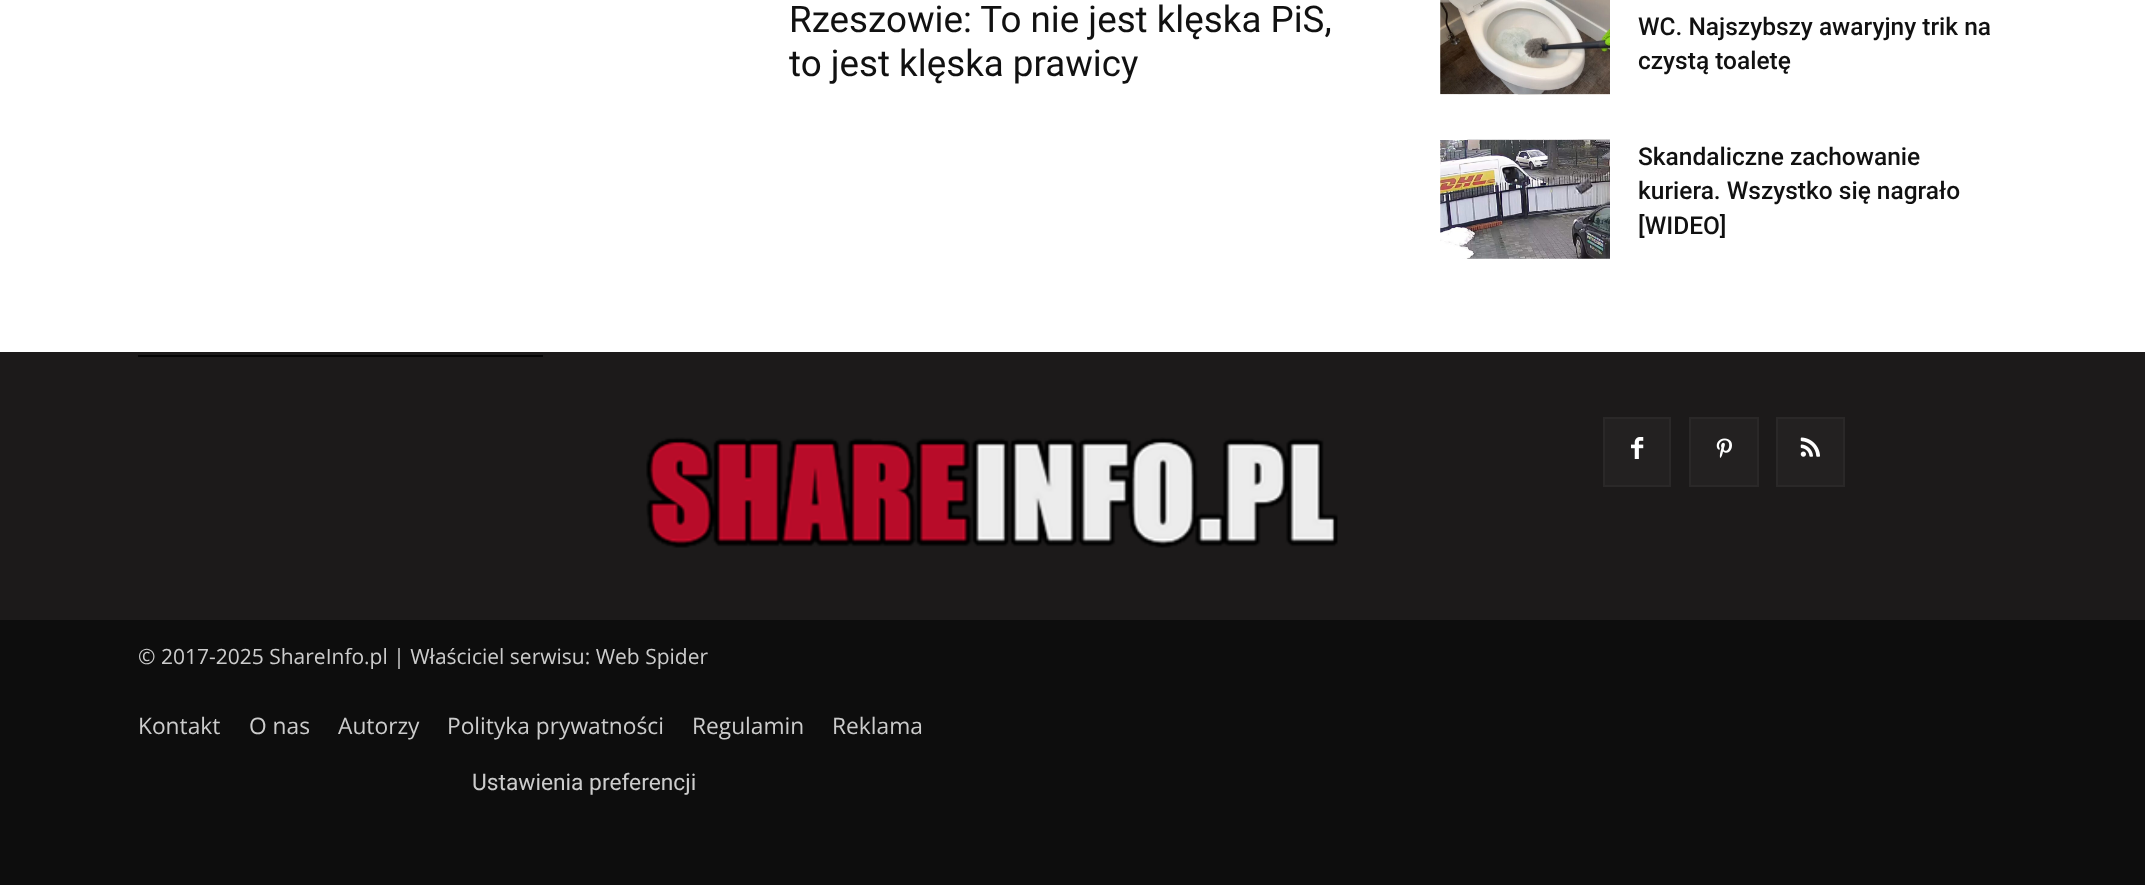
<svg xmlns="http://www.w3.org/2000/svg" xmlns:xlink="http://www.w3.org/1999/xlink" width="2145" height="885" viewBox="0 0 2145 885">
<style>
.cls-1{font:36.75px Roboto;fill:#111111}
.cls-2{font:500 24.5px Roboto;fill:#111111}
.cls-3{font:21px Open Sans;fill:#cccccc}
.cls-4{font:22.75px Open Sans;fill:#cccccc}
.cls-5{font:22.75px Roboto;fill:#cccccc}
</style>
<rect width="100%" height="100%" fill="#ffffff"/>
<image xlink:href="image0.png" x="1440" y="0" width="170" height="95"/>
<image xlink:href="image1.png" x="1440" y="139" width="170" height="120"/>
<rect fill="#1c1a1a" x="0" y="352" width="2145" height="268"/>
<rect fill="#040404" x="138" y="355" width="405" height="2"/>
<image xlink:href="image2.png" x="646" y="437" width="692" height="111"/>
<rect fill="#232121" stroke="#2a2828" stroke-width="2" x="1604" y="418" width="66" height="68"/>
<image xlink:href="image3.png" x="1631" y="437" width="13" height="22"/>
<rect fill="#232121" stroke="#2a2828" stroke-width="2" x="1690" y="418" width="68" height="68"/>
<image xlink:href="image4.png" x="1716" y="438" width="16" height="20"/>
<rect fill="#232121" stroke="#2a2828" stroke-width="2" x="1777" y="418" width="67" height="68"/>
<image xlink:href="image5.png" x="1800" y="437" width="20" height="20"/>
<rect fill="#0d0d0d" x="0" y="620" width="2145" height="265"/>
<text class="cls-1"><tspan x="789" y="32">Rzeszowie: To nie jest klęska PiS,</tspan><tspan x="789" y="76">to jest klęska prawicy</tspan></text>
<text class="cls-2"><tspan x="1638" y="35">WC. Najszybszy awaryjny trik na</tspan><tspan x="1638" y="69">czystą toaletę</tspan></text>
<text class="cls-2"><tspan x="1638" y="165">Skandaliczne zachowanie</tspan><tspan x="1638" y="199">kuriera. Wszystko się nagrało</tspan><tspan x="1638" y="234">[WIDEO]</tspan></text>
<text class="cls-3" x="138" y="664">© 2017-2025 ShareInfo.pl | Właściciel serwisu: Web Spider</text>
<text class="cls-4" x="138" y="734">Kontakt</text>
<text class="cls-4" x="249" y="734">O nas</text>
<text class="cls-4" x="338" y="734">Autorzy</text>
<text class="cls-4" x="447" y="734">Polityka prywatności</text>
<text class="cls-4" x="692" y="734">Regulamin</text>
<text class="cls-4" x="832" y="734">Reklama</text>
<text class="cls-5" x="472" y="790">Ustawienia preferencji</text>
</svg>
